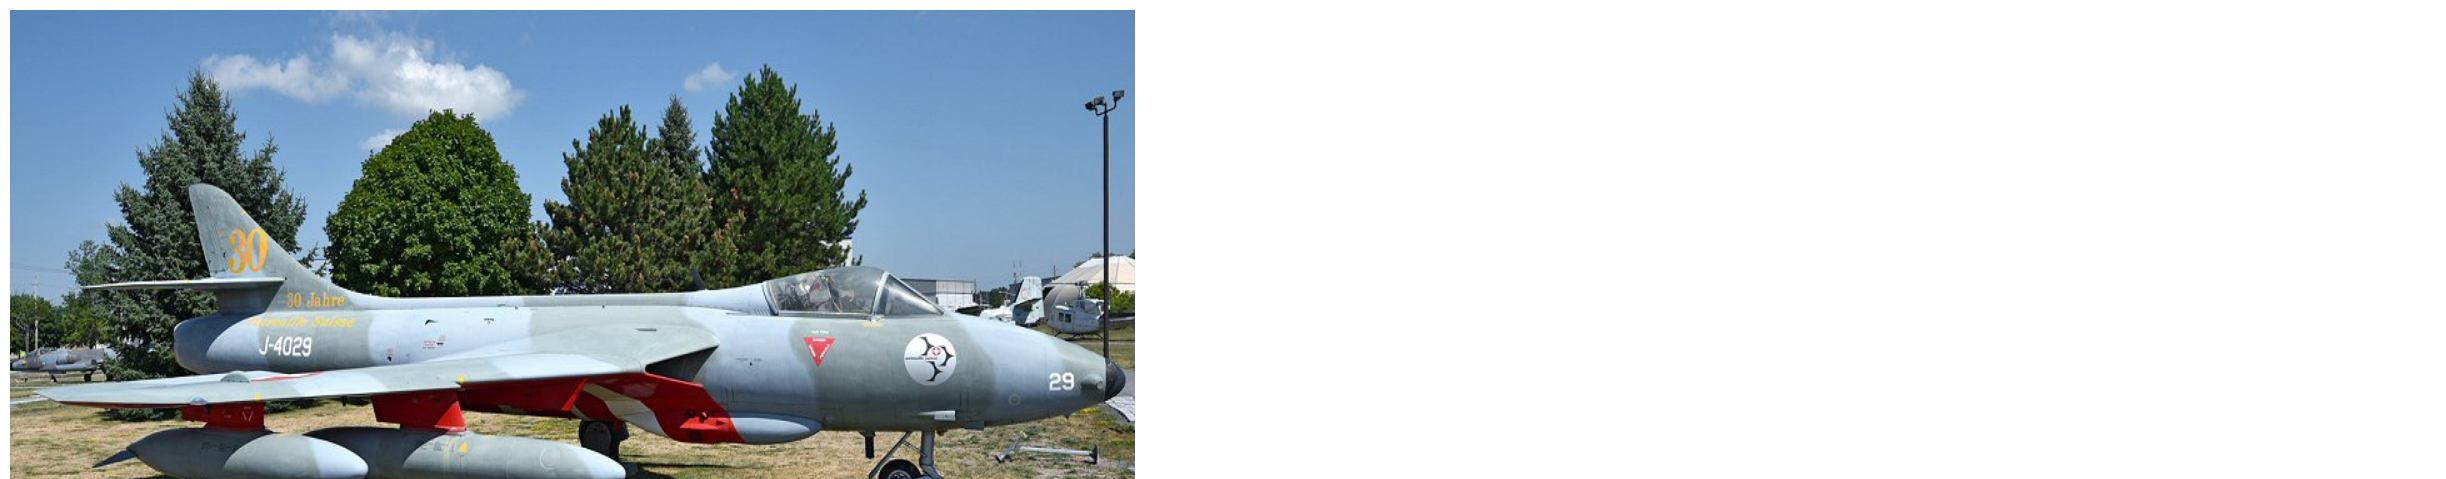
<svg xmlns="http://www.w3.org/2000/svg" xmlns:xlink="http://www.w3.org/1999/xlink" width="2446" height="479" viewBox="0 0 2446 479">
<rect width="100%" height="100%" fill="#ffffff"/>
<image xlink:href="image0.png" x="10" y="10" width="1125" height="469"/>
</svg>
